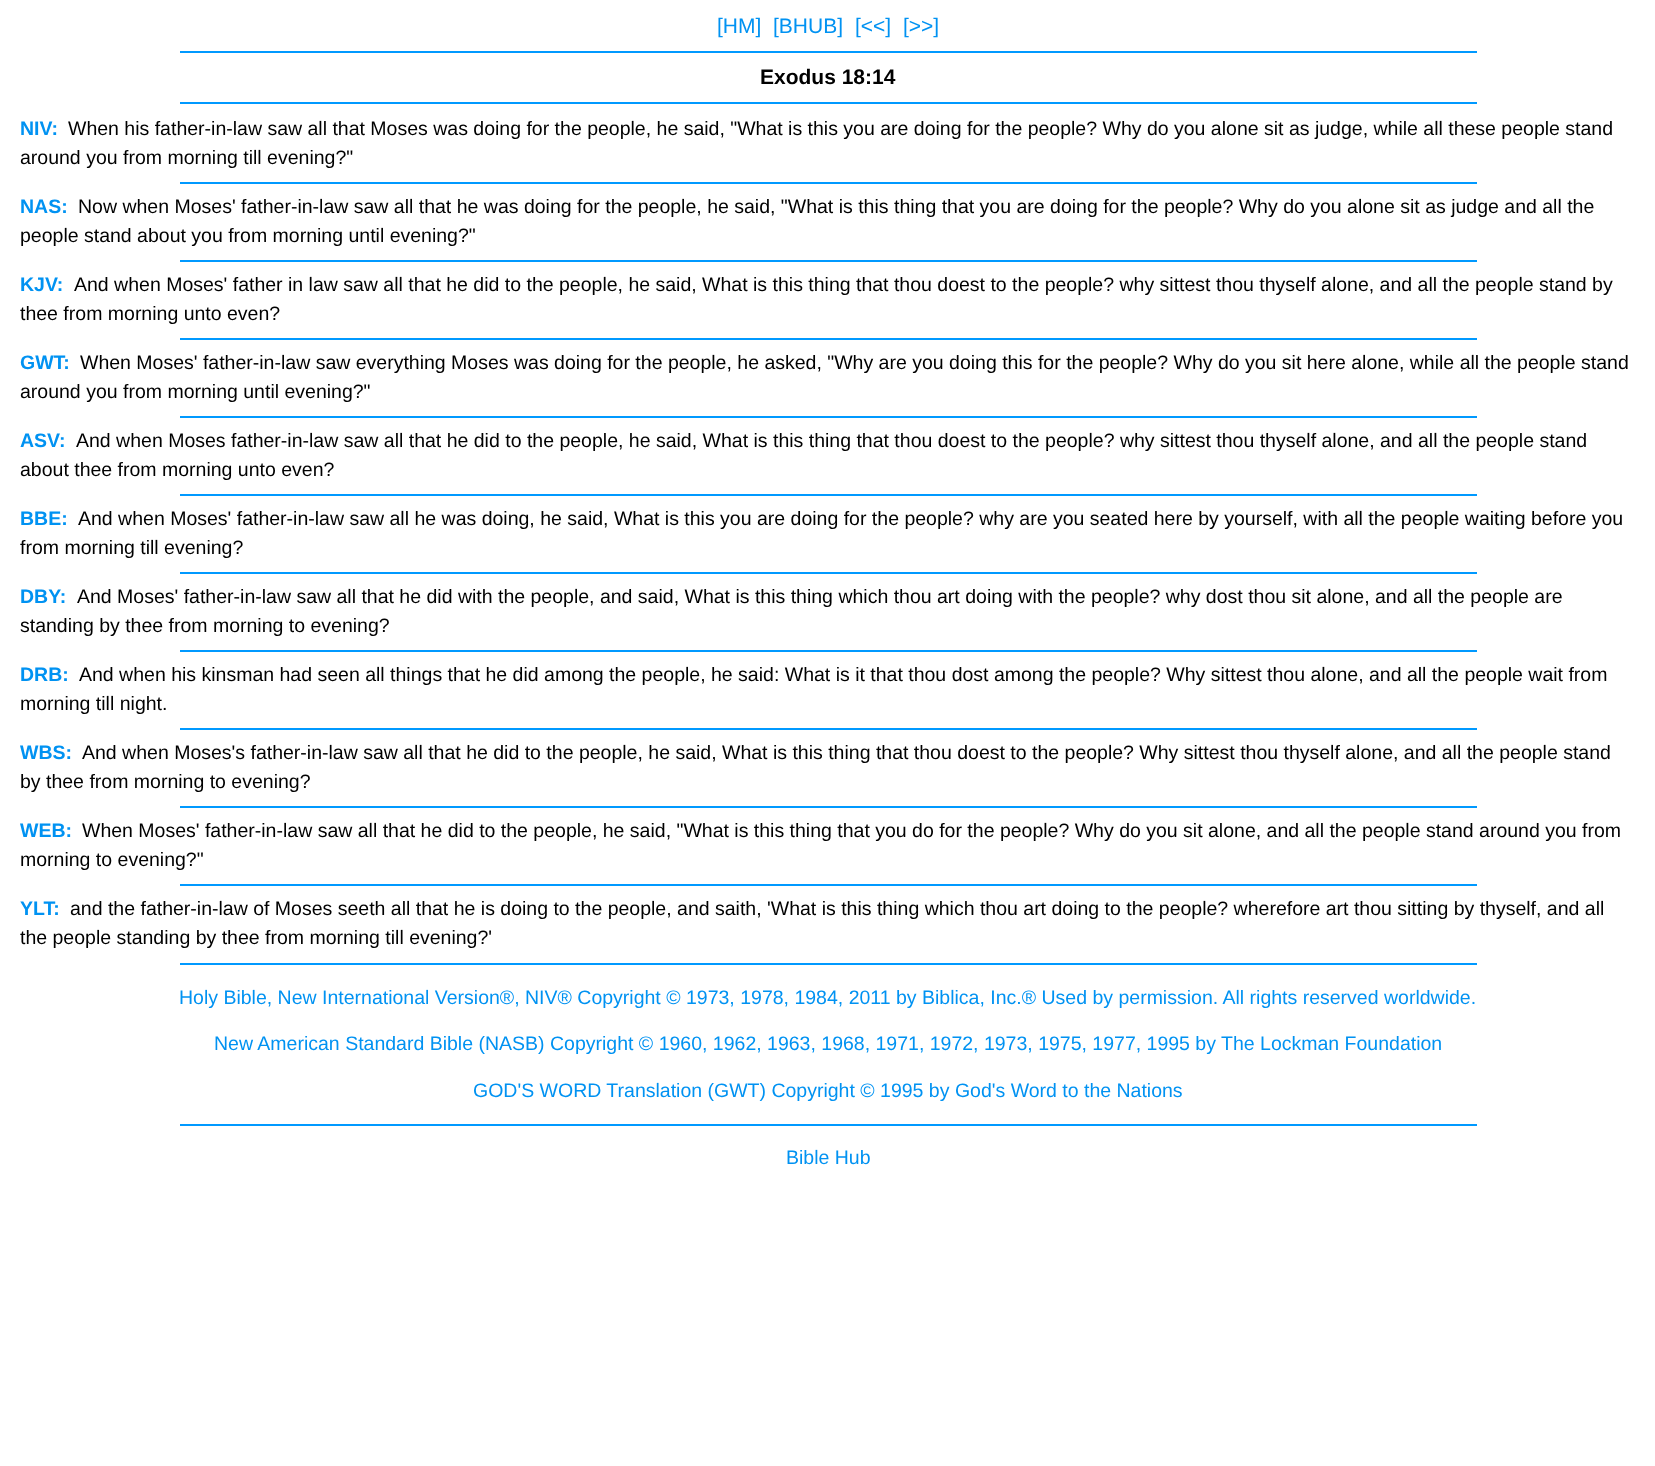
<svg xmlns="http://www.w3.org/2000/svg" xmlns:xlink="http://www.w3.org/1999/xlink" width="1655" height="1466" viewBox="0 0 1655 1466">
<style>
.cls-1{font:21px Liberation Sans;fill:#0092f2}
.cls-2{font:bold 21px Liberation Sans;fill:#000000}
.cls-3{font:bold 19.5px Liberation Sans;fill:#0092f2}
.cls-4{font:19.5px Liberation Sans;fill:#000000}
.cls-5{font:19.5px Liberation Sans;fill:#0092f2}
</style>
<rect width="100%" height="100%" fill="#ffffff"/>
<rect fill="#0099ff" x="180" y="51" width="1297" height="2"/>
<rect fill="#0099ff" x="180" y="102" width="1297" height="2"/>
<rect fill="#0099ff" x="180" y="182" width="1297" height="2"/>
<rect fill="#0099ff" x="180" y="260" width="1297" height="2"/>
<rect fill="#0099ff" x="180" y="338" width="1297" height="2"/>
<rect fill="#0099ff" x="180" y="416" width="1297" height="2"/>
<rect fill="#0099ff" x="180" y="494" width="1297" height="2"/>
<rect fill="#0099ff" x="180" y="572" width="1297" height="2"/>
<rect fill="#0099ff" x="180" y="650" width="1297" height="2"/>
<rect fill="#0099ff" x="180" y="728" width="1297" height="2"/>
<rect fill="#0099ff" x="180" y="806" width="1297" height="2"/>
<rect fill="#0099ff" x="180" y="884" width="1297" height="2"/>
<rect fill="#0099ff" x="180" y="963" width="1297" height="2"/>
<rect fill="#0099ff" x="180" y="1124" width="1297" height="2"/>
<text class="cls-1" x="717" y="33">[HM]</text>
<text class="cls-1" x="773" y="33">[BHUB]</text>
<text class="cls-1" x="855" y="33">[&lt;&lt;]</text>
<text class="cls-1" x="903" y="33">[&gt;&gt;]</text>
<text class="cls-2" x="760" y="84">Exodus 18:14</text>
<text class="cls-3" x="20" y="135">NIV:</text>
<text class="cls-4" x="68" y="135">When his father-in-law saw all that Moses was doing for the people, he said, "What is this you are doing for the people? Why do you alone sit as judge, while all these people stand</text>
<text class="cls-4" x="20" y="164">around you from morning till evening?"</text>
<text class="cls-3" x="20" y="213">NAS:</text>
<text class="cls-4" x="78" y="213">Now when Moses' father-in-law saw all that he was doing for the people, he said, "What is this thing that you are doing for the people? Why do you alone sit as judge and all the</text>
<text class="cls-4" x="20" y="242">people stand about you from morning until evening?"</text>
<text class="cls-3" x="20" y="291">KJV:</text>
<text class="cls-4" x="74" y="291">And when Moses' father in law saw all that he did to the people, he said, What is this thing that thou doest to the people? why sittest thou thyself alone, and all the people stand by</text>
<text class="cls-4" x="20" y="320">thee from morning unto even?</text>
<text class="cls-3" x="20" y="369">GWT:</text>
<text class="cls-4" x="80" y="369">When Moses' father-in-law saw everything Moses was doing for the people, he asked, "Why are you doing this for the people? Why do you sit here alone, while all the people stand</text>
<text class="cls-4" x="20" y="398">around you from morning until evening?"</text>
<text class="cls-3" x="20" y="447">ASV:</text>
<text class="cls-4" x="76" y="447">And when Moses father-in-law saw all that he did to the people, he said, What is this thing that thou doest to the people? why sittest thou thyself alone, and all the people stand</text>
<text class="cls-4" x="20" y="476">about thee from morning unto even?</text>
<text class="cls-3" x="20" y="525">BBE:</text>
<text class="cls-4" x="78" y="525">And when Moses' father-in-law saw all he was doing, he said, What is this you are doing for the people? why are you seated here by yourself, with all the people waiting before you</text>
<text class="cls-4" x="20" y="554">from morning till evening?</text>
<text class="cls-3" x="20" y="603">DBY:</text>
<text class="cls-4" x="77" y="603">And Moses' father-in-law saw all that he did with the people, and said, What is this thing which thou art doing with the people? why dost thou sit alone, and all the people are</text>
<text class="cls-4" x="20" y="632">standing by thee from morning to evening?</text>
<text class="cls-3" x="20" y="681">DRB:</text>
<text class="cls-4" x="79" y="681">And when his kinsman had seen all things that he did among the people, he said: What is it that thou dost among the people? Why sittest thou alone, and all the people wait from</text>
<text class="cls-4" x="20" y="710">morning till night.</text>
<text class="cls-3" x="20" y="759">WBS:</text>
<text class="cls-4" x="82" y="759">And when Moses's father-in-law saw all that he did to the people, he said, What is this thing that thou doest to the people? Why sittest thou thyself alone, and all the people stand</text>
<text class="cls-4" x="20" y="788">by thee from morning to evening?</text>
<text class="cls-3" x="20" y="837">WEB:</text>
<text class="cls-4" x="82" y="837">When Moses' father-in-law saw all that he did to the people, he said, "What is this thing that you do for the people? Why do you sit alone, and all the people stand around you from</text>
<text class="cls-4" x="20" y="866">morning to evening?"</text>
<text class="cls-3" x="20" y="915">YLT:</text>
<text class="cls-4" x="70" y="915">and the father-in-law of Moses seeth all that he is doing to the people, and saith, 'What is this thing which thou art doing to the people? wherefore art thou sitting by thyself, and all</text>
<text class="cls-4" x="20" y="944">the people standing by thee from morning till evening?'</text>
<text class="cls-5" x="179" y="1004">Holy Bible, New International Version®, NIV® Copyright © 1973, 1978, 1984, 2011 by Biblica, Inc.® Used by permission. All rights reserved worldwide.</text>
<text class="cls-5" x="214" y="1050">New American Standard Bible (NASB) Copyright © 1960, 1962, 1963, 1968, 1971, 1972, 1973, 1975, 1977, 1995 by The Lockman Foundation</text>
<text class="cls-5" x="473" y="1097">GOD'S WORD Translation (GWT) Copyright © 1995 by God's Word to the Nations</text>
<text class="cls-5" x="786" y="1164">Bible Hub</text>
</svg>
